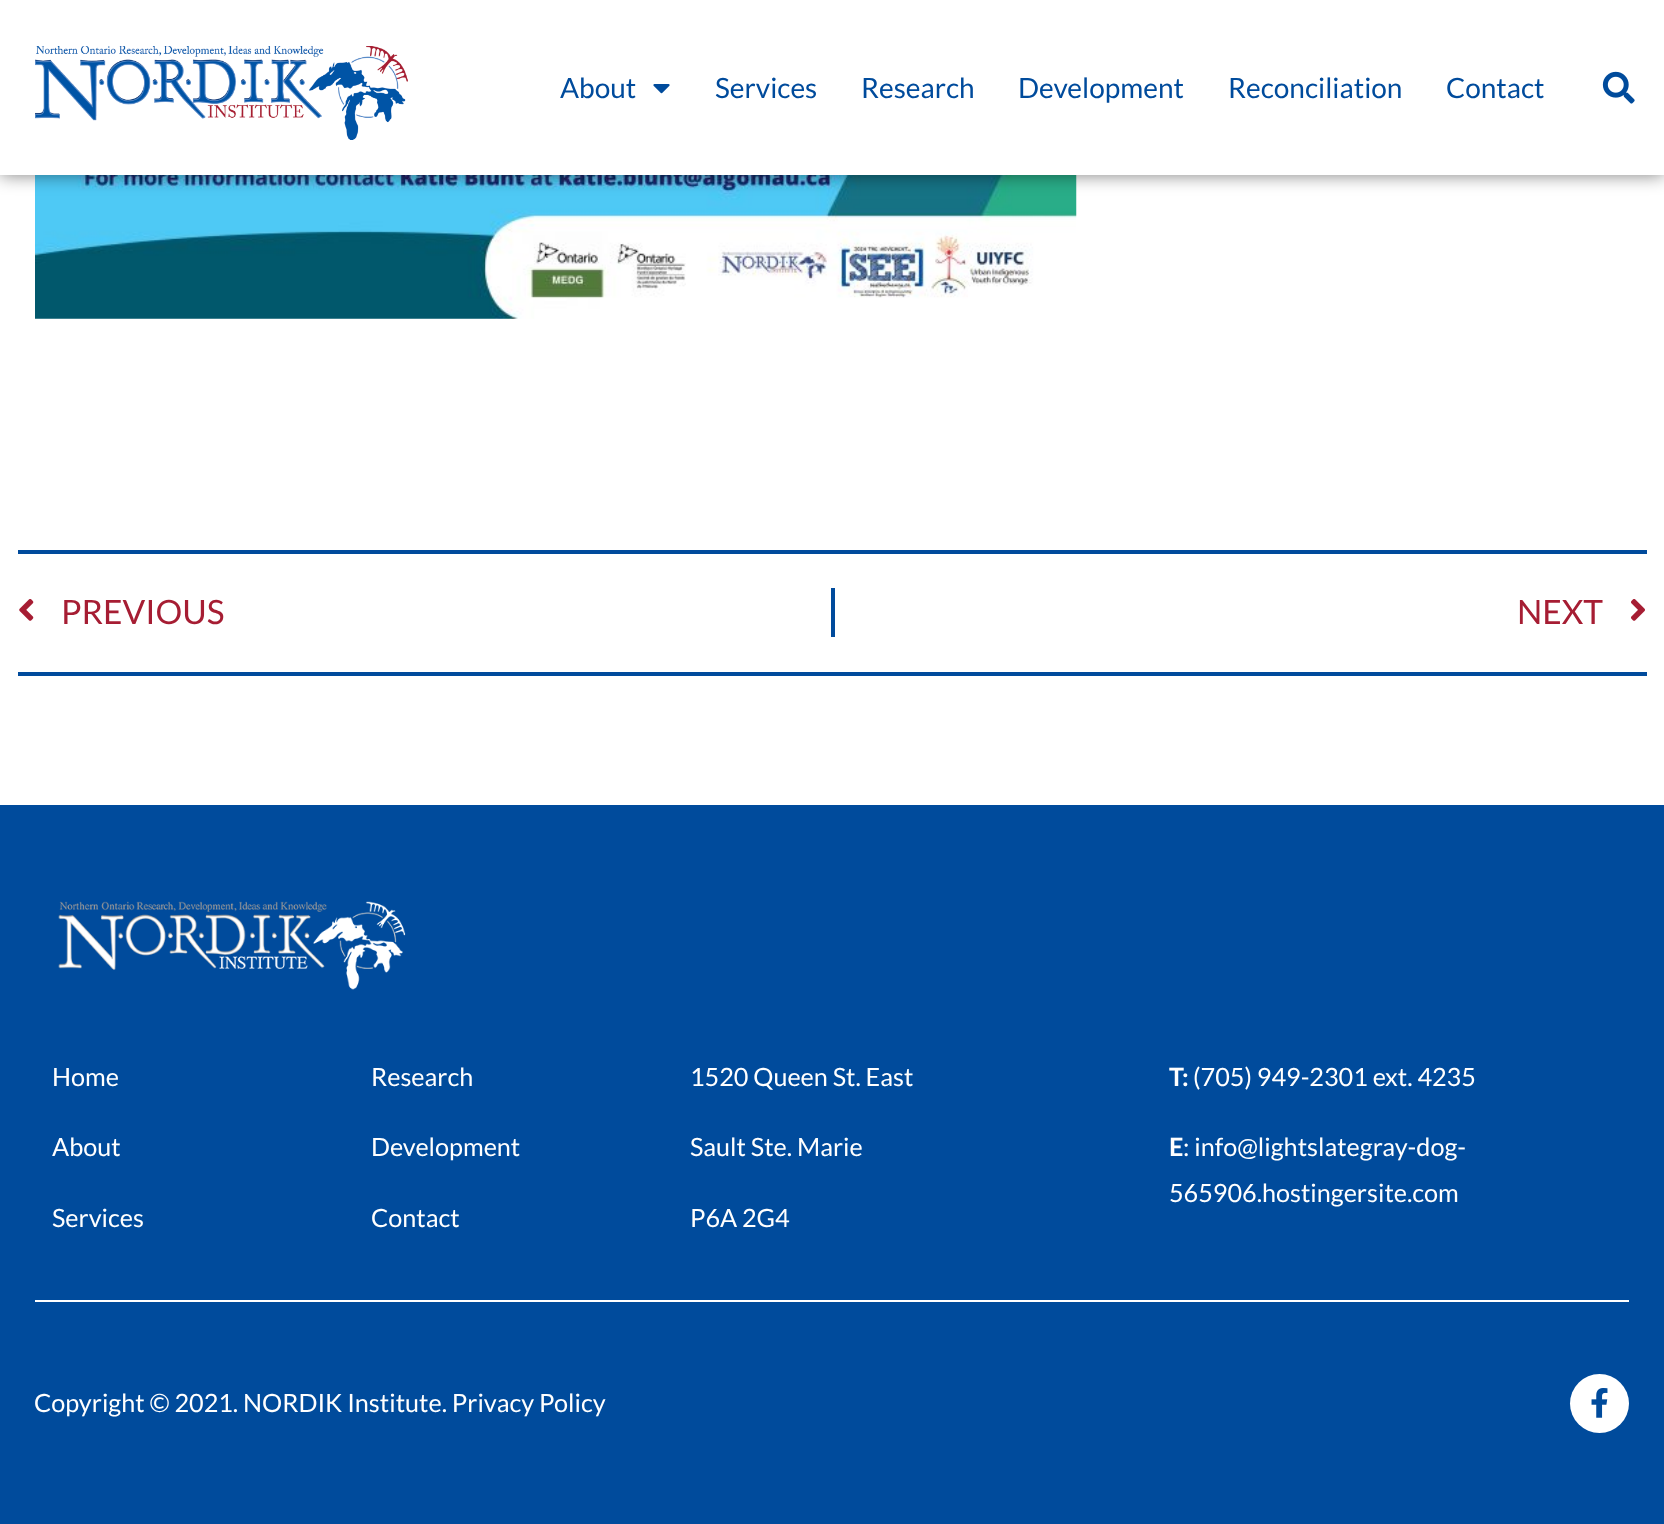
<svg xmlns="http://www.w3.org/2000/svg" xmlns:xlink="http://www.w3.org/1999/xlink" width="1664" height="1524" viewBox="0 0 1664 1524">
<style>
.cls-1{font:28px Lato;fill:#004b9c}
.cls-2{font:33.5px Lato;fill:#a61d33}
.cls-3{font:25.2px Lato;fill:#ffffff}
.cls-4{font:bold 25.2px Lato;fill:#ffffff}
</style>
<rect width="100%" height="100%" fill="#ffffff"/>
<image xlink:href="image3.png" x="35" y="175" width="1042" height="144"/>
<rect fill="#000000" fill-opacity="0.5" filter="blur(9px)" x="0" y="0" width="1664" height="175"/>
<rect fill="#ffffff" x="0" y="0" width="1664" height="175"/>
<image xlink:href="image0.png" x="35" y="46" width="373" height="94"/>
<image xlink:href="image1.png" x="653" y="84" width="17" height="10"/>
<image xlink:href="image2.png" x="1602" y="71" width="33" height="33"/>
<rect fill="#004b9c" x="18" y="550" width="1629" height="4"/>
<image xlink:href="image4.png" x="19" y="599" width="15" height="22"/>
<rect fill="#004b9c" x="831" y="588" width="4" height="49"/>
<image xlink:href="image5.png" x="1631" y="599" width="14" height="22"/>
<rect fill="#004b9c" x="18" y="672" width="1629" height="4"/>
<rect fill="#004b9c" x="0" y="805" width="1664" height="719"/>
<image xlink:href="image6.png" x="58" y="901" width="348" height="89"/>
<rect fill="#ffffff" x="35" y="1300" width="1594" height="2"/>
<circle fill="#ffffff" cx="1599.5" cy="1403.5" r="29.5"/>
<image xlink:href="image7.png" x="1591" y="1388" width="17" height="30"/>
<text class="cls-1" x="560" y="98">About</text>
<text class="cls-1" x="715" y="98">Services</text>
<text class="cls-1" x="861" y="98">Research</text>
<text class="cls-1" x="1018" y="98">Development</text>
<text class="cls-1" x="1228" y="98">Reconciliation</text>
<text class="cls-1" x="1446" y="98">Contact</text>
<text class="cls-2" x="61" y="624">PREVIOUS</text>
<text class="cls-2" x="1517" y="624">NEXT</text>
<text class="cls-3" x="52" y="1086">Home</text>
<text class="cls-3" x="52" y="1156">About</text>
<text class="cls-3" x="52" y="1227">Services</text>
<text class="cls-3" x="371" y="1086">Research</text>
<text class="cls-3" x="371" y="1156">Development</text>
<text class="cls-3" x="371" y="1227">Contact</text>
<text class="cls-3" x="690" y="1086">1520 Queen St. East</text>
<text class="cls-3" x="690" y="1156">Sault Ste. Marie</text>
<text class="cls-3" x="690" y="1227">P6A 2G4</text>
<text class="cls-4" x="1169" y="1086">T:</text>
<text class="cls-3" x="1193" y="1086">(705) 949-2301 ext. 4235</text>
<text class="cls-4" x="1169" y="1156">E</text>
<text class="cls-3" x="1183" y="1156">: info@lightslategray-dog-</text>
<text class="cls-3" x="1169" y="1202">565906.hostingersite.com</text>
<text class="cls-3" x="34" y="1412">Copyright © 2021. NORDIK Institute. Privacy Policy</text>
</svg>
